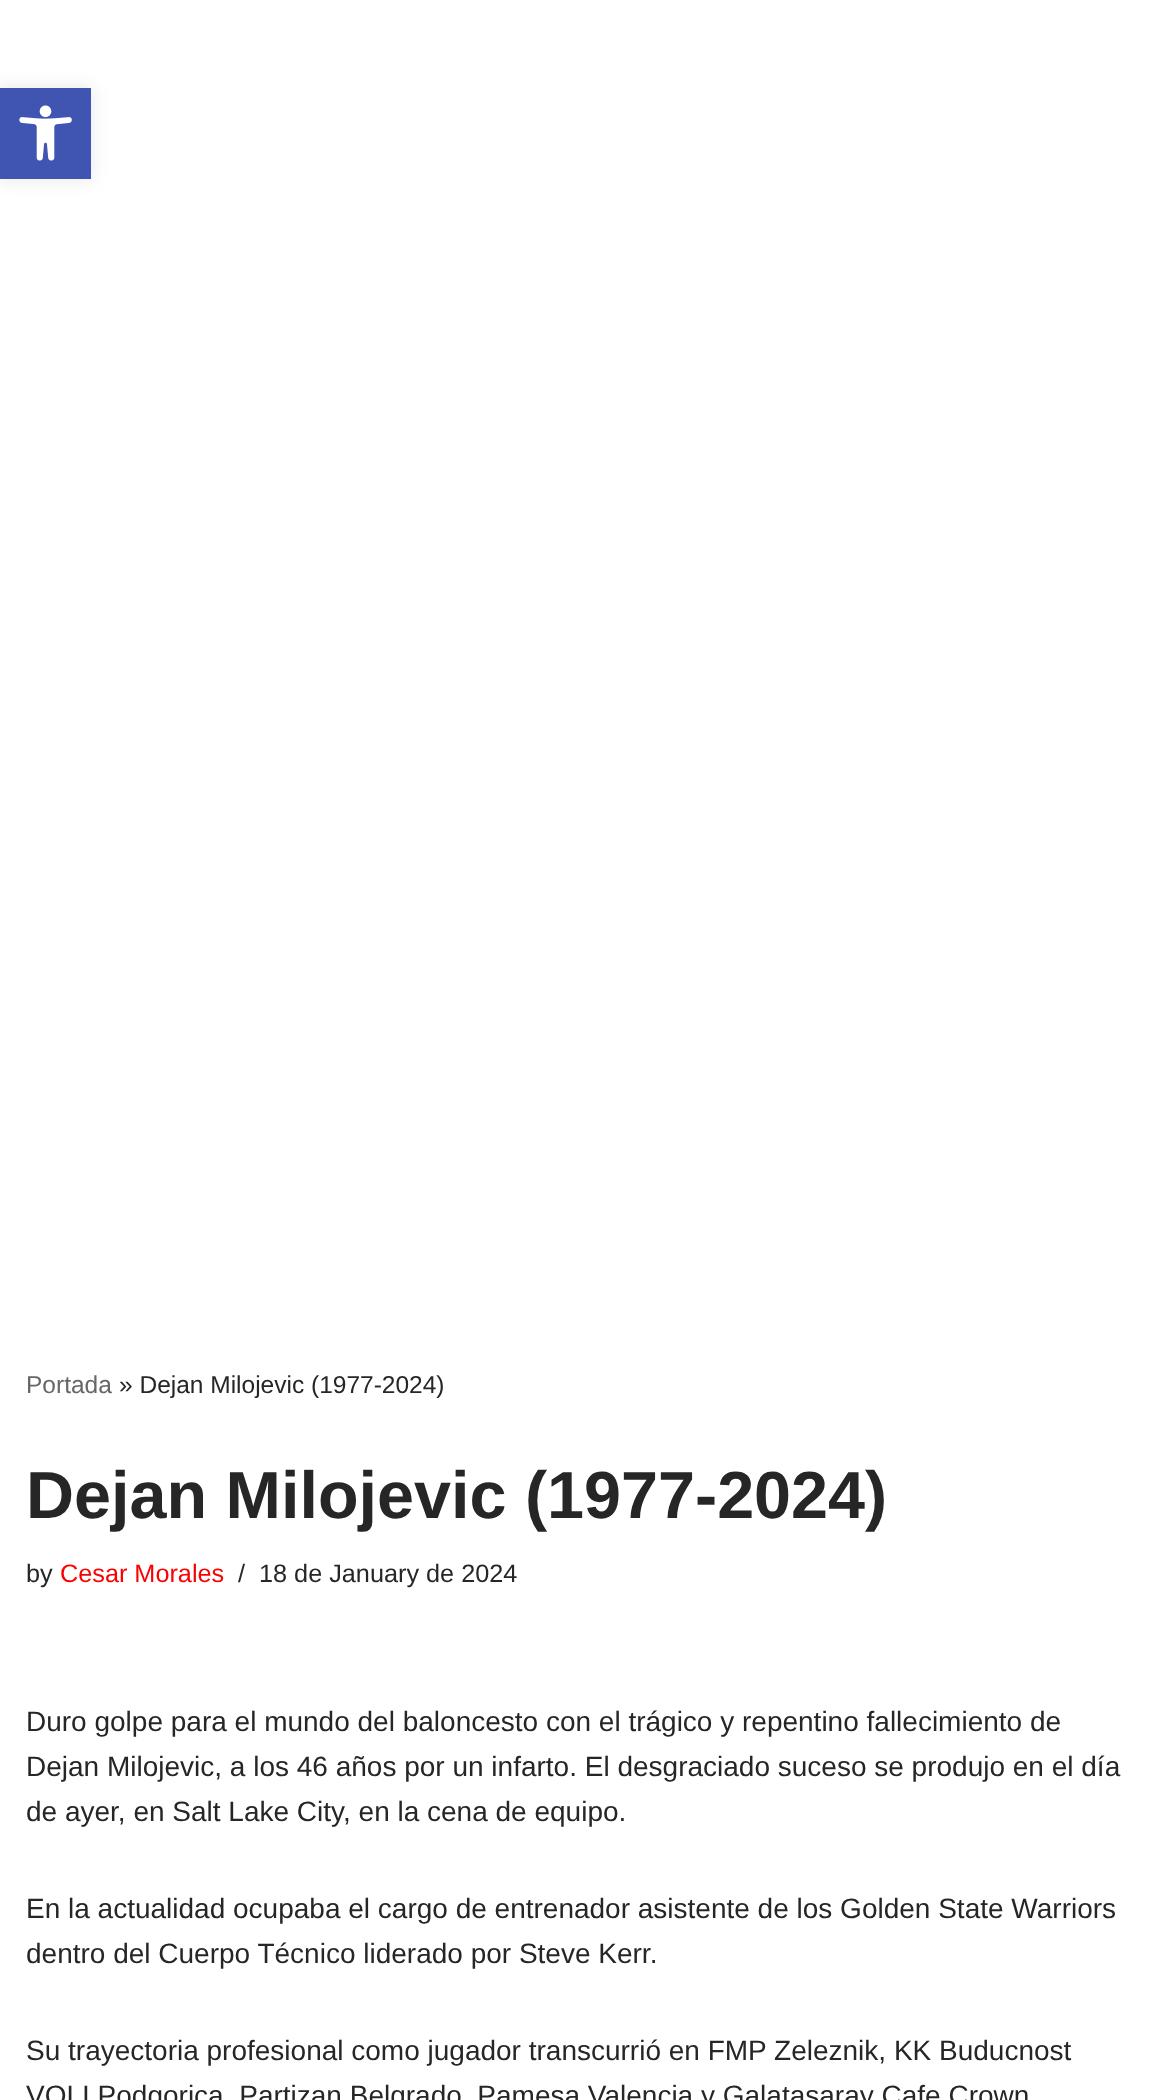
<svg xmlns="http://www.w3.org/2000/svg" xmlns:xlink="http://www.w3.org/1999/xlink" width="1167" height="2100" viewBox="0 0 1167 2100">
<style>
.cls-1{font:24.5px Liberation Sans;fill:#676767}
.cls-2{font:24.5px Liberation Sans;fill:#272626}
.cls-3{font:bold 66.5px Liberation Sans;fill:#272626}
.cls-4{font:25.25px Liberation Sans;fill:#272626}
.cls-5{font:25.25px Liberation Sans;fill:#fb0000}
.cls-6{font:28px Liberation Sans;fill:#272626}
</style>
<rect width="100%" height="100%" fill="#ffffff"/>
<rect fill="#000000" fill-opacity="0.1" filter="blur(9px)" x="0" y="88" width="91" height="91"/>
<rect fill="#4054b2" x="0" y="88" width="91" height="91"/>
<image xlink:href="image0.png" x="19" y="105" width="53" height="56"/>
<text class="cls-1" x="26" y="1393">Portada</text>
<text class="cls-2" x="119" y="1393">» Dejan Milojevic (1977-2024)</text>
<text class="cls-3" x="26" y="1518">Dejan Milojevic (1977-2024)</text>
<text class="cls-4" x="26" y="1582">by</text>
<text class="cls-5" x="60" y="1582">Cesar Morales</text>
<text class="cls-4" x="238" y="1582">/</text>
<text class="cls-4" x="259" y="1582">18 de January de 2024</text>
<text class="cls-6"><tspan x="26" y="1731">Duro golpe para el mundo del baloncesto con el trágico y repentino fallecimiento de</tspan><tspan x="26" y="1776">Dejan Milojevic, a los 46 años por un infarto. El desgraciado suceso se produjo en el día</tspan><tspan x="26" y="1821">de ayer, en Salt Lake City, en la cena de equipo.</tspan></text>
<text class="cls-6"><tspan x="26" y="1918">En la actualidad ocupaba el cargo de entrenador asistente de los Golden State Warriors</tspan><tspan x="26" y="1963">dentro del Cuerpo Técnico liderado por Steve Kerr.</tspan></text>
<text class="cls-6"><tspan x="26" y="2060">Su trayectoria profesional como jugador transcurrió en FMP Zeleznik, KK Buducnost</tspan><tspan x="26" y="2105">VOLI Podgorica, Partizan Belgrado, Pamesa Valencia y Galatasaray Cafe Crown</tspan></text>
</svg>
